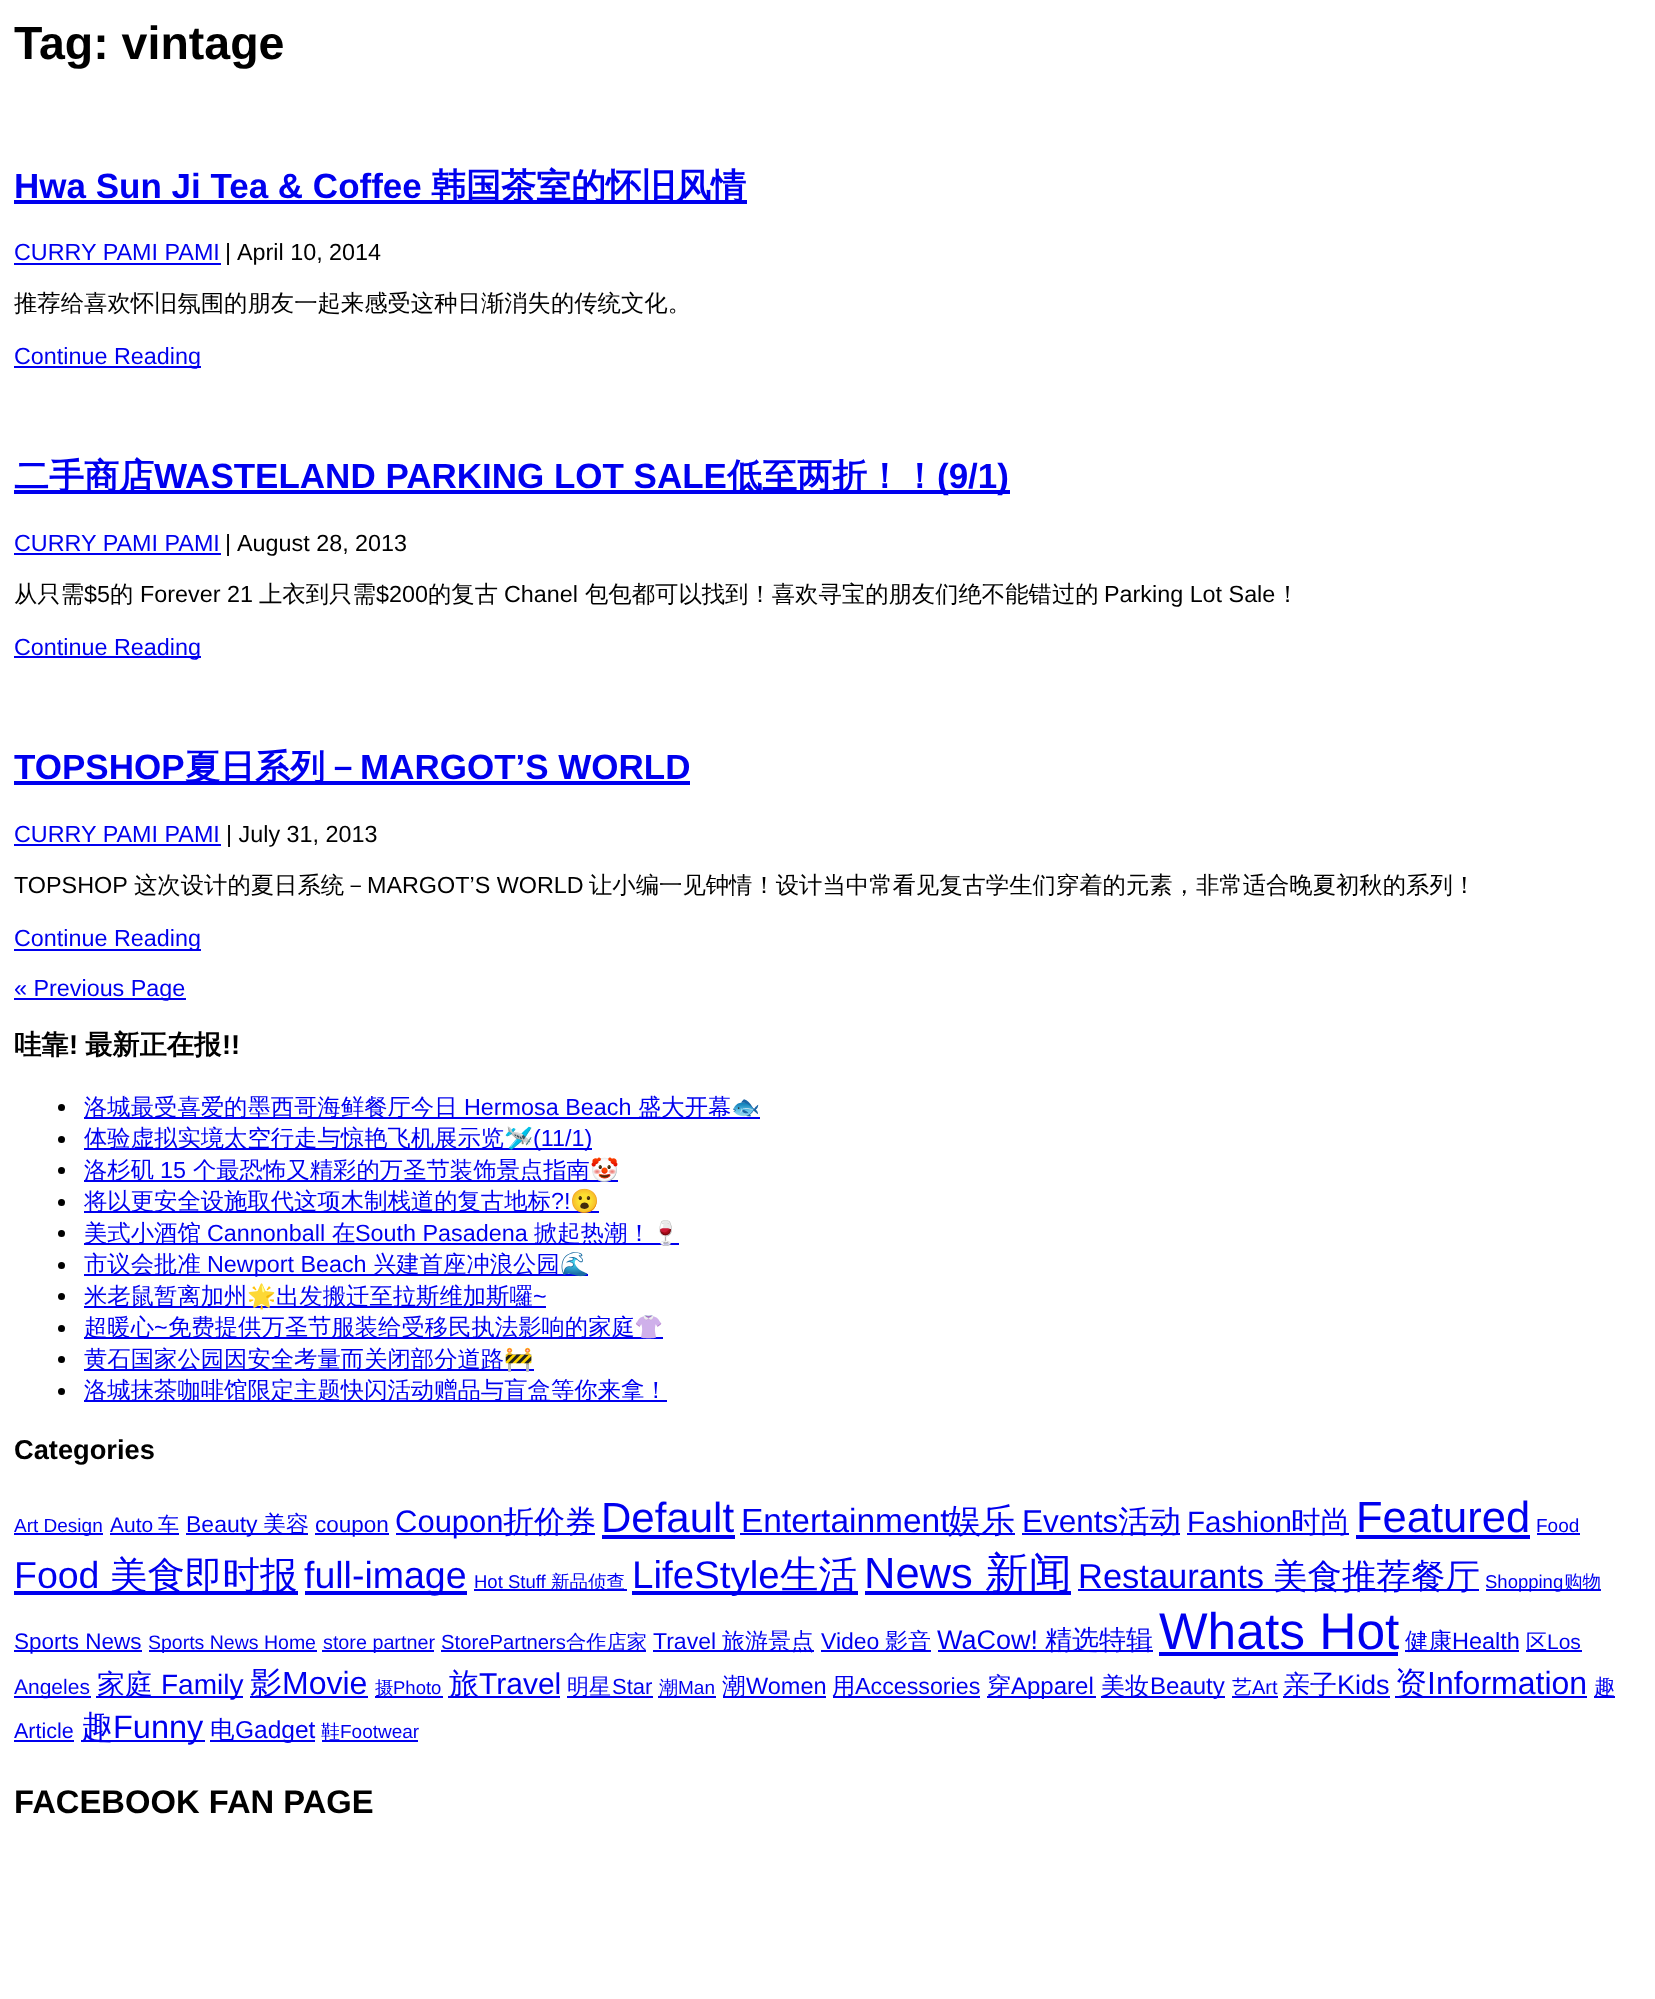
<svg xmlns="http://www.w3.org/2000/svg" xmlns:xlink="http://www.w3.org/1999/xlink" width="1655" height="1999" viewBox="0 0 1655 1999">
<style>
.cls-1{font:bold 46.5px Liberation Sans;fill:#000000}
.cls-2{font:bold 35px Liberation Sans;fill:#0000ee}
.cls-3{font:bold 35px WenQuanYi Zen Hei;fill:#0000ee}
.cls-4{font:23.35px Liberation Sans;fill:#0000ee}
.cls-5{font:23.35px Liberation Sans;fill:#000000}
.cls-6{font:500 23.35px WenQuanYi Zen Hei;fill:#000000}
.cls-7{font:bold 27.25px WenQuanYi Zen Hei;fill:#000000}
.cls-8{font:bold 27.25px Liberation Sans;fill:#000000}
.cls-9{font:500 23.35px WenQuanYi Zen Hei;fill:#0000ee}
.cls-10{font:23.35px Noto Color Emoji;fill:#0000ee}
.cls-11{font:19px Liberation Sans;fill:#0000ee}
.cls-12{font:21px Liberation Sans;fill:#0000ee}
.cls-13{font:500 21px WenQuanYi Zen Hei;fill:#0000ee}
.cls-14{font:23px Liberation Sans;fill:#0000ee}
.cls-15{font:500 23px WenQuanYi Zen Hei;fill:#0000ee}
.cls-16{font:22.5px Liberation Sans;fill:#0000ee}
.cls-17{font:31px Liberation Sans;fill:#0000ee}
.cls-18{font:500 31px WenQuanYi Zen Hei;fill:#0000ee}
.cls-19{font:42px Liberation Sans;fill:#0000ee}
.cls-20{font:33.5px Liberation Sans;fill:#0000ee}
.cls-21{font:500 33.5px WenQuanYi Zen Hei;fill:#0000ee}
.cls-22{font:31.5px Liberation Sans;fill:#0000ee}
.cls-23{font:500 31.5px WenQuanYi Zen Hei;fill:#0000ee}
.cls-24{font:29.5px Liberation Sans;fill:#0000ee}
.cls-25{font:500 29.5px WenQuanYi Zen Hei;fill:#0000ee}
.cls-26{font:43.5px Liberation Sans;fill:#0000ee}
.cls-27{font:37.5px Liberation Sans;fill:#0000ee}
.cls-28{font:500 37.5px WenQuanYi Zen Hei;fill:#0000ee}
.cls-29{font:18.5px Liberation Sans;fill:#0000ee}
.cls-30{font:500 18.5px WenQuanYi Zen Hei;fill:#0000ee}
.cls-31{font:38.5px Liberation Sans;fill:#0000ee}
.cls-32{font:500 38.5px WenQuanYi Zen Hei;fill:#0000ee}
.cls-33{font:500 43.5px WenQuanYi Zen Hei;fill:#0000ee}
.cls-34{font:34.5px Liberation Sans;fill:#0000ee}
.cls-35{font:500 34.5px WenQuanYi Zen Hei;fill:#0000ee}
.cls-36{font:19.5px Liberation Sans;fill:#0000ee}
.cls-37{font:19.75px Liberation Sans;fill:#0000ee}
.cls-38{font:20.25px Liberation Sans;fill:#0000ee}
.cls-39{font:500 20.25px WenQuanYi Zen Hei;fill:#0000ee}
.cls-40{font:27px Liberation Sans;fill:#0000ee}
.cls-41{font:500 27px WenQuanYi Zen Hei;fill:#0000ee}
.cls-42{font:51.5px Liberation Sans;fill:#0000ee}
.cls-43{font:500 23.5px WenQuanYi Zen Hei;fill:#0000ee}
.cls-44{font:23.5px Liberation Sans;fill:#0000ee}
.cls-45{font:500 28px WenQuanYi Zen Hei;fill:#0000ee}
.cls-46{font:28px Liberation Sans;fill:#0000ee}
.cls-47{font:500 32px WenQuanYi Zen Hei;fill:#0000ee}
.cls-48{font:32px Liberation Sans;fill:#0000ee}
.cls-49{font:500 30px WenQuanYi Zen Hei;fill:#0000ee}
.cls-50{font:30px Liberation Sans;fill:#0000ee}
.cls-51{font:500 22px WenQuanYi Zen Hei;fill:#0000ee}
.cls-52{font:22px Liberation Sans;fill:#0000ee}
.cls-53{font:500 19px WenQuanYi Zen Hei;fill:#0000ee}
.cls-54{font:500 23.25px WenQuanYi Zen Hei;fill:#0000ee}
.cls-55{font:23.25px Liberation Sans;fill:#0000ee}
.cls-56{font:500 24px WenQuanYi Zen Hei;fill:#0000ee}
.cls-57{font:24px Liberation Sans;fill:#0000ee}
.cls-58{font:500 20px WenQuanYi Zen Hei;fill:#0000ee}
.cls-59{font:20px Liberation Sans;fill:#0000ee}
.cls-60{font:500 21.5px WenQuanYi Zen Hei;fill:#0000ee}
.cls-61{font:21.5px Liberation Sans;fill:#0000ee}
.cls-62{font:500 32.5px WenQuanYi Zen Hei;fill:#0000ee}
.cls-63{font:32.5px Liberation Sans;fill:#0000ee}
.cls-64{font:500 24.5px WenQuanYi Zen Hei;fill:#0000ee}
.cls-65{font:24.5px Liberation Sans;fill:#0000ee}
.cls-66{font:bold 32.75px Liberation Sans;fill:#000000}
</style>
<rect width="100%" height="100%" fill="#ffffff"/>
<rect fill="#0000ee" x="14" y="200" width="733" height="4"/>
<rect fill="#0000ee" x="14" y="263" width="207" height="2"/>
<rect fill="#0000ee" x="14" y="366" width="187" height="2"/>
<rect fill="#0000ee" x="14" y="490" width="996" height="4"/>
<rect fill="#0000ee" x="14" y="553" width="207" height="2"/>
<rect fill="#0000ee" x="14" y="656" width="187" height="2"/>
<rect fill="#0000ee" x="14" y="781" width="676" height="4"/>
<rect fill="#0000ee" x="14" y="844" width="207" height="2"/>
<rect fill="#0000ee" x="14" y="949" width="187" height="2"/>
<rect fill="#0000ee" x="14" y="998" width="172" height="2"/>
<circle fill="#000000" cx="61.5" cy="1107.5" r="3.5"/>
<rect fill="#0000ee" x="84" y="1117" width="676" height="2"/>
<circle fill="#000000" cx="61.5" cy="1139.5" r="3.5"/>
<rect fill="#0000ee" x="84" y="1148" width="508" height="2"/>
<circle fill="#000000" cx="61.5" cy="1170.5" r="3.5"/>
<rect fill="#0000ee" x="84" y="1180" width="534" height="2"/>
<circle fill="#000000" cx="61.5" cy="1202.5" r="3.5"/>
<rect fill="#0000ee" x="84" y="1211" width="515" height="2"/>
<circle fill="#000000" cx="61.5" cy="1233.5" r="3.5"/>
<rect fill="#0000ee" x="84" y="1243" width="595" height="2"/>
<circle fill="#000000" cx="61.5" cy="1265.5" r="3.5"/>
<rect fill="#0000ee" x="84" y="1274" width="504" height="2"/>
<circle fill="#000000" cx="61.5" cy="1296.5" r="3.5"/>
<rect fill="#0000ee" x="84" y="1306" width="462" height="2"/>
<circle fill="#000000" cx="61.5" cy="1328.5" r="3.5"/>
<rect fill="#0000ee" x="84" y="1337" width="579" height="2"/>
<circle fill="#000000" cx="61.5" cy="1359.5" r="3.5"/>
<rect fill="#0000ee" x="84" y="1369" width="450" height="2"/>
<circle fill="#000000" cx="61.5" cy="1391.5" r="3.5"/>
<rect fill="#0000ee" x="84" y="1400" width="583" height="2"/>
<rect fill="#0000ee" x="14" y="1533" width="89" height="2"/>
<rect fill="#0000ee" x="110" y="1533" width="69" height="2"/>
<rect fill="#0000ee" x="186" y="1533" width="122" height="2"/>
<rect fill="#0000ee" x="315" y="1533" width="74" height="2"/>
<rect fill="#0000ee" x="396" y="1533" width="199" height="2"/>
<rect fill="#0000ee" x="602" y="1535" width="133" height="4"/>
<rect fill="#0000ee" x="740" y="1533" width="275" height="2"/>
<rect fill="#0000ee" x="1022" y="1533" width="158" height="2"/>
<rect fill="#0000ee" x="1187" y="1533" width="162" height="2"/>
<rect fill="#0000ee" x="1356" y="1535" width="174" height="4"/>
<rect fill="#0000ee" x="1537" y="1533" width="43" height="2"/>
<rect fill="#0000ee" x="14" y="1591" width="284" height="4"/>
<rect fill="#0000ee" x="305" y="1591" width="162" height="4"/>
<rect fill="#0000ee" x="474" y="1589" width="153" height="2"/>
<rect fill="#0000ee" x="632" y="1591" width="226" height="4"/>
<rect fill="#0000ee" x="865" y="1591" width="206" height="4"/>
<rect fill="#0000ee" x="1078" y="1589" width="401" height="2"/>
<rect fill="#0000ee" x="1486" y="1589" width="115" height="2"/>
<rect fill="#0000ee" x="14" y="1650" width="128" height="2"/>
<rect fill="#0000ee" x="149" y="1650" width="168" height="2"/>
<rect fill="#0000ee" x="322" y="1650" width="112" height="2"/>
<rect fill="#0000ee" x="441" y="1650" width="205" height="2"/>
<rect fill="#0000ee" x="653" y="1650" width="161" height="2"/>
<rect fill="#0000ee" x="821" y="1650" width="110" height="2"/>
<rect fill="#0000ee" x="938" y="1650" width="215" height="2"/>
<rect fill="#0000ee" x="1159" y="1652" width="239" height="4"/>
<rect fill="#0000ee" x="1405" y="1650" width="114" height="2"/>
<rect fill="#0000ee" x="1526" y="1650" width="56" height="2"/>
<rect fill="#0000ee" x="14" y="1696" width="77" height="2"/>
<rect fill="#0000ee" x="96" y="1696" width="147" height="2"/>
<rect fill="#0000ee" x="250" y="1696" width="118" height="2"/>
<rect fill="#0000ee" x="375" y="1696" width="68" height="2"/>
<rect fill="#0000ee" x="448" y="1696" width="112" height="2"/>
<rect fill="#0000ee" x="567" y="1696" width="86" height="2"/>
<rect fill="#0000ee" x="658" y="1696" width="58" height="2"/>
<rect fill="#0000ee" x="723" y="1696" width="103" height="2"/>
<rect fill="#0000ee" x="833" y="1696" width="147" height="2"/>
<rect fill="#0000ee" x="987" y="1696" width="109" height="2"/>
<rect fill="#0000ee" x="1101" y="1696" width="124" height="2"/>
<rect fill="#0000ee" x="1232" y="1696" width="46" height="2"/>
<rect fill="#0000ee" x="1283" y="1696" width="107" height="2"/>
<rect fill="#0000ee" x="1395" y="1696" width="192" height="2"/>
<rect fill="#0000ee" x="1594" y="1696" width="21" height="2"/>
<rect fill="#0000ee" x="14" y="1740" width="60" height="2"/>
<rect fill="#0000ee" x="81" y="1740" width="124" height="2"/>
<rect fill="#0000ee" x="210" y="1740" width="105" height="2"/>
<rect fill="#0000ee" x="322" y="1740" width="96" height="2"/>
<text class="cls-1" x="14" y="59">Tag: vintage</text>
<text class="cls-2" x="14" y="198">Hwa Sun Ji Tea &amp; Coffee</text>
<text class="cls-3" x="431" y="198">韩国茶室的怀旧风情</text>
<text class="cls-4" x="14" y="260">CURRY PAMI PAMI</text>
<text class="cls-5" x="225" y="260">|</text>
<text class="cls-5" x="237" y="260">April 10, 2014</text>
<text class="cls-6" x="14" y="311">推荐给喜欢怀旧氛围的朋友一起来感受这种日渐消失的传统文化。</text>
<text class="cls-4" x="14" y="364">Continue Reading</text>
<text class="cls-3" x="14" y="488">二手商店</text>
<text class="cls-2" x="154" y="488">WASTELAND PARKING LOT SALE</text>
<text class="cls-3" x="727" y="488">低至两折！！</text>
<text class="cls-2" x="937" y="488">(9/1)</text>
<text class="cls-4" x="14" y="551">CURRY PAMI PAMI</text>
<text class="cls-5" x="225" y="551">|</text>
<text class="cls-5" x="237" y="551">August 28, 2013</text>
<text class="cls-6" x="14" y="602">从只需</text>
<text class="cls-5" x="84" y="602">$5</text>
<text class="cls-6" x="110" y="602">的</text>
<text class="cls-5" x="140" y="602">Forever 21</text>
<text class="cls-6" x="259" y="602">上衣到只需</text>
<text class="cls-5" x="376" y="602">$200</text>
<text class="cls-6" x="428" y="602">的复古</text>
<text class="cls-5" x="504" y="602">Chanel</text>
<text class="cls-6" x="585" y="602">包包都可以找到！喜欢寻宝的朋友们绝不能错过的</text>
<text class="cls-5" x="1104" y="602">Parking Lot Sale</text>
<text class="cls-6" x="1276" y="602">！</text>
<text class="cls-4" x="14" y="655">Continue Reading</text>
<text class="cls-2" x="14" y="779">TOPSHOP</text>
<text class="cls-3" x="185" y="779">夏日系列－</text>
<text class="cls-2" x="360" y="779">MARGOT’S WORLD</text>
<text class="cls-4" x="14" y="842">CURRY PAMI PAMI</text>
<text class="cls-5" x="226" y="842">| July 31, 2013</text>
<text class="cls-5" x="14" y="893">TOPSHOP</text>
<text class="cls-6" x="134" y="893">这次设计的夏日系统－</text>
<text class="cls-5" x="367" y="893">MARGOT’S WORLD</text>
<text class="cls-6" x="589" y="893">让小编一见钟情！设计当中常看见复古学生们穿着的元素，非常适合晚夏初秋的系列！</text>
<text class="cls-4" x="14" y="946">Continue Reading</text>
<text class="cls-4" x="14" y="996">« Previous Page</text>
<text class="cls-7" x="14" y="1054">哇靠</text>
<text class="cls-8" x="69" y="1054">!</text>
<text class="cls-7" x="85" y="1054">最新正在报</text>
<text class="cls-8" x="222" y="1054">!!</text>
<text class="cls-9" x="84" y="1115">洛城最受喜爱的墨西哥海鲜餐厅今日</text>
<text class="cls-4" x="464" y="1115">Hermosa Beach</text>
<text class="cls-9" x="638" y="1115">盛大开幕</text>
<text class="cls-10" x="731" y="1115">🐟</text>
<text class="cls-9" x="84" y="1146">体验虚拟实境太空行走与惊艳飞机展示览</text>
<text class="cls-10" x="504" y="1146">🛩️</text>
<text class="cls-4" x="533" y="1146">(11/1)</text>
<text class="cls-9" x="84" y="1178">洛杉矶</text>
<text class="cls-4" x="160" y="1178">15</text>
<text class="cls-9" x="193" y="1178">个最恐怖又精彩的万圣节装饰景点指南</text>
<text class="cls-10" x="590" y="1178">🤡</text>
<text class="cls-9" x="84" y="1209">将以更安全设施取代这项木制栈道的复古地标</text>
<text class="cls-4" x="551" y="1209">?!</text>
<text class="cls-10" x="570" y="1209">😮</text>
<text class="cls-9" x="84" y="1241">美式小酒馆</text>
<text class="cls-4" x="207" y="1241">Cannonball</text>
<text class="cls-9" x="332" y="1241">在</text>
<text class="cls-4" x="355" y="1241">South Pasadena</text>
<text class="cls-9" x="534" y="1241">掀起热潮！</text>
<text class="cls-10" x="651" y="1241">🍷</text>
<text class="cls-9" x="84" y="1272">市议会批准</text>
<text class="cls-4" x="207" y="1272">Newport Beach</text>
<text class="cls-9" x="373" y="1272">兴建首座冲浪公园</text>
<text class="cls-10" x="560" y="1272">🌊</text>
<text class="cls-9" x="84" y="1304">米老鼠暂离加州</text>
<text class="cls-10" x="247" y="1304">🌟</text>
<text class="cls-9" x="276" y="1304">出发搬迁至拉斯维加斯囉</text>
<text class="cls-4" x="533" y="1304">~</text>
<text class="cls-9" x="84" y="1335">超暖心</text>
<text class="cls-4" x="154" y="1335">~</text>
<text class="cls-9" x="168" y="1335">免费提供万圣节服装给受移民执法影响的家庭</text>
<text class="cls-10" x="634" y="1335">👚</text>
<text class="cls-9" x="84" y="1367">黄石国家公园因安全考量而关闭部分道路</text>
<text class="cls-10" x="504" y="1367">🚧</text>
<text class="cls-9" x="84" y="1398">洛城抹茶咖啡馆限定主题快闪活动赠品与盲盒等你来拿！</text>
<text class="cls-8" x="14" y="1459">Categories</text>
<text class="cls-11" x="14" y="1532">Art Design</text>
<text class="cls-12" x="110" y="1532">Auto</text>
<text class="cls-13" x="158" y="1532">车</text>
<text class="cls-14" x="186" y="1532">Beauty</text>
<text class="cls-15" x="263" y="1532">美容</text>
<text class="cls-16" x="315" y="1532">coupon</text>
<text class="cls-17" x="395" y="1532">Coupon</text>
<text class="cls-18" x="503" y="1532">折价券</text>
<text class="cls-19" x="601" y="1532">Default</text>
<text class="cls-20" x="741" y="1532">Entertainment</text>
<text class="cls-21" x="948" y="1532">娱乐</text>
<text class="cls-22" x="1022" y="1532">Events</text>
<text class="cls-23" x="1118" y="1532">活动</text>
<text class="cls-24" x="1187" y="1532">Fashion</text>
<text class="cls-25" x="1291" y="1532">时尚</text>
<text class="cls-26" x="1356" y="1532">Featured</text>
<text class="cls-11" x="1536" y="1532">Food</text>
<text class="cls-27" x="14" y="1588">Food</text>
<text class="cls-28" x="110" y="1588">美食即时报</text>
<text class="cls-27" x="304" y="1588">full-image</text>
<text class="cls-29" x="474" y="1588">Hot Stuff</text>
<text class="cls-30" x="551" y="1588">新品侦查</text>
<text class="cls-31" x="632" y="1588">LifeStyle</text>
<text class="cls-32" x="780" y="1588">生活</text>
<text class="cls-26" x="864" y="1588">News</text>
<text class="cls-33" x="985" y="1588">新闻</text>
<text class="cls-34" x="1078" y="1588">Restaurants</text>
<text class="cls-35" x="1273" y="1588">美食推荐餐厅</text>
<text class="cls-29" x="1485" y="1588">Shopping</text>
<text class="cls-30" x="1564" y="1588">购物</text>
<text class="cls-16" x="14" y="1649">Sports News</text>
<text class="cls-36" x="148" y="1649">Sports News Home</text>
<text class="cls-37" x="323" y="1649">store partner</text>
<text class="cls-38" x="441" y="1649">StorePartners</text>
<text class="cls-39" x="566" y="1649">合作店家</text>
<text class="cls-14" x="653" y="1649">Travel</text>
<text class="cls-15" x="722" y="1649">旅游景点</text>
<text class="cls-14" x="821" y="1649">Video</text>
<text class="cls-15" x="885" y="1649">影音</text>
<text class="cls-40" x="937" y="1649">WaCow!</text>
<text class="cls-41" x="1045" y="1649">精选特辑</text>
<text class="cls-42" x="1159" y="1649">Whats Hot</text>
<text class="cls-43" x="1405" y="1649">健康</text>
<text class="cls-44" x="1452" y="1649">Health</text>
<text class="cls-13" x="1526" y="1649">区</text>
<text class="cls-12" x="1547" y="1649">Los</text>
<text class="cls-12" x="14" y="1694">Angeles</text>
<text class="cls-45" x="97" y="1694">家庭</text>
<text class="cls-46" x="161" y="1694">Family</text>
<text class="cls-47" x="250" y="1694">影</text>
<text class="cls-48" x="282" y="1694">Movie</text>
<text class="cls-30" x="375" y="1694">摄</text>
<text class="cls-29" x="393" y="1694">Photo</text>
<text class="cls-49" x="449" y="1694">旅</text>
<text class="cls-50" x="479" y="1694">Travel</text>
<text class="cls-51" x="567" y="1694">明星</text>
<text class="cls-52" x="612" y="1694">Star</text>
<text class="cls-53" x="659" y="1694">潮</text>
<text class="cls-11" x="678" y="1694">Man</text>
<text class="cls-43" x="722" y="1694">潮</text>
<text class="cls-44" x="746" y="1694">Women</text>
<text class="cls-54" x="832" y="1694">用</text>
<text class="cls-55" x="855" y="1694">Accessories</text>
<text class="cls-56" x="987" y="1694">穿</text>
<text class="cls-57" x="1011" y="1694">Apparel</text>
<text class="cls-56" x="1101" y="1694">美妆</text>
<text class="cls-57" x="1150" y="1694">Beauty</text>
<text class="cls-58" x="1232" y="1694">艺</text>
<text class="cls-59" x="1252" y="1694">Art</text>
<text class="cls-41" x="1283" y="1694">亲子</text>
<text class="cls-40" x="1337" y="1694">Kids</text>
<text class="cls-47" x="1395" y="1694">资</text>
<text class="cls-48" x="1427" y="1694">Information</text>
<text class="cls-60" x="1594" y="1694">趣</text>
<text class="cls-61" x="14" y="1738">Article</text>
<text class="cls-62" x="81" y="1738">趣</text>
<text class="cls-63" x="113" y="1738">Funny</text>
<text class="cls-64" x="210" y="1738">电</text>
<text class="cls-65" x="235" y="1738">Gadget</text>
<text class="cls-53" x="321" y="1738">鞋</text>
<text class="cls-11" x="340" y="1738">Footwear</text>
<text class="cls-66" x="14" y="1813">FACEBOOK FAN PAGE</text>
</svg>
